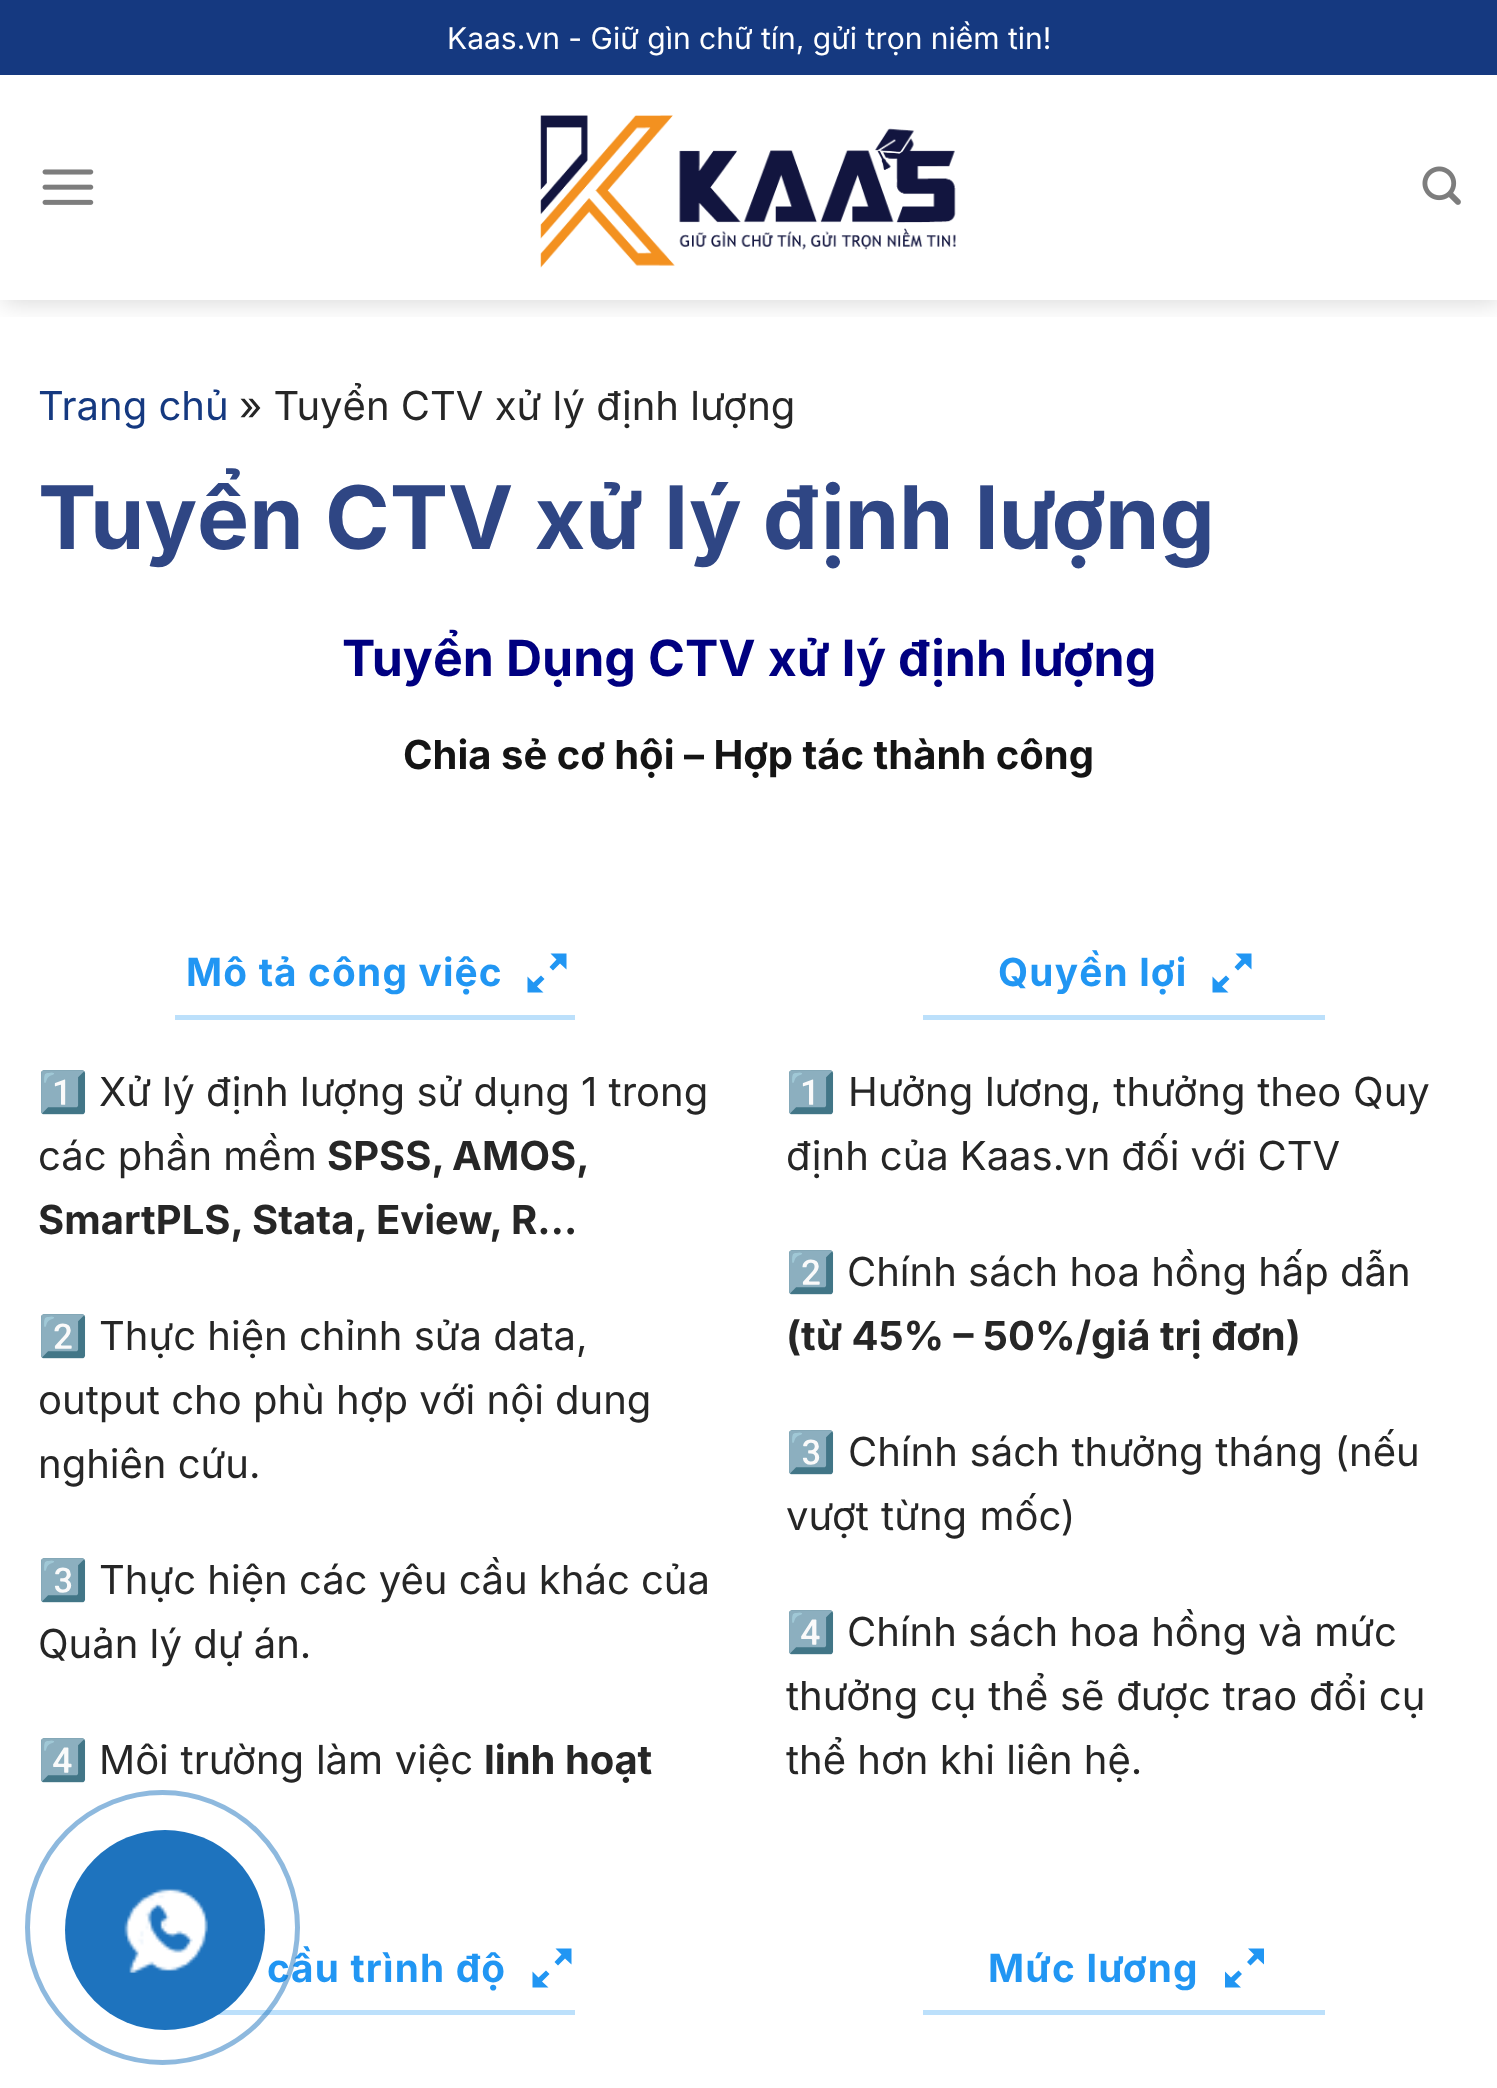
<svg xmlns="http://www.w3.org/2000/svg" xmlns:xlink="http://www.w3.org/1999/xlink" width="1497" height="2088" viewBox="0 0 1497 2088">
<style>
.cls-1{font:30px Inter;fill:#ffffff}
.cls-2{font:40px Inter;fill:#153980}
.cls-3{font:40px Inter;fill:#262626}
.cls-4{font:bold 87.5px Inter;fill:#2f4684}
.cls-5{font:bold 50px Inter;fill:#000080}
.cls-6{font:bold 40px Inter;fill:#141414}
.cls-7{font:bold 38.75px Inter;letter-spacing:1.2px;fill:#2196f3}
.cls-8{font:40px Noto Color Emoji;fill:#262626}
.cls-9{font:bold 40px Inter;fill:#262626}
</style>
<defs>
<clipPath id="clip1"><rect x="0" y="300" width="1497" height="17"/></clipPath>
</defs>
<rect width="100%" height="100%" fill="#ffffff"/>
<g clip-path="url(#clip1)">
<rect fill="#000000" fill-opacity="0.15" filter="blur(12.5px)" x="3" y="3" width="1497" height="300"/>
</g>
<rect fill="#153980" x="0" y="0" width="1497" height="75"/>
<image xlink:href="image0.png" x="42" y="169" width="52" height="36"/>
<image xlink:href="image1.png" x="540" y="115" width="416" height="153"/>
<image xlink:href="image2.png" x="1422" y="166" width="39" height="39"/>
<path fill="#2196f3" d="M566.5 953.5V969.5L560 963.5L553 970.5L549.5 967L556.5 959.5L550.5 953.5ZM544.5 979L537 986.5L543.5 992.5H527.5V976.5L533.5 982.5L541 975.5Z"/>
<rect fill="#bce0fb" x="175" y="1015" width="400" height="5"/>
<path fill="#2196f3" d="M1251.5 953.5V969.5L1245 963.5L1238 970.5L1234.5 967L1241.5 959.5L1235.5 953.5ZM1229.5 979L1222 986.5L1228.5 992.5H1212.5V976.5L1218.5 982.5L1226 975.5Z"/>
<rect fill="#bce0fb" x="923" y="1015" width="402" height="5"/>
<path fill="#2196f3" d="M571.5 1948.5V1964.5L565 1958.5L558 1965.5L554.5 1962L561.5 1954.5L555.5 1948.5ZM549.5 1974L542 1981.5L548.5 1987.5H532.5V1971.5L538.5 1977.5L546 1970.5Z"/>
<rect fill="#bce0fb" x="217" y="2010" width="358" height="5"/>
<path fill="#2196f3" d="M1264 1948.5V1964.5L1257.5 1958.5L1250.5 1965.5L1247 1962L1254 1954.5L1248 1948.5ZM1242 1974L1234.5 1981.5L1241 1987.5H1225V1971.5L1231 1977.5L1238.5 1970.5Z"/>
<rect fill="#bce0fb" x="923" y="2010" width="402" height="5"/>
<text class="cls-1" x="447" y="49">Kaas.vn - Giữ gìn chữ tín, gửi trọn niềm tin!</text>
<text class="cls-2" x="38" y="420">Trang chủ</text>
<text class="cls-3" x="239" y="420">» Tuyển CTV xử lý định lượng</text>
<text class="cls-4" x="38" y="549" word-spacing="0.5">Tuyển CTV xử lý định lượng</text>
<text class="cls-5" x="342" y="676" word-spacing="0.25">Tuyển Dụng CTV xử lý định lượng</text>
<text class="cls-6" x="403" y="769">Chia sẻ cơ hội – Hợp tác thành công</text>
<text class="cls-7" x="186" y="986">Mô tả công việc</text>
<text class="cls-8" x="38" y="1106">1️⃣</text>
<text class="cls-3" x="99" y="1106">Xử lý định lượng sử dụng 1 trong</text>
<text class="cls-3" x="38" y="1170">các phần mềm</text>
<text class="cls-9" x="327" y="1170" word-spacing="-1">SPSS, AMOS,</text>
<text class="cls-9" x="38" y="1234">SmartPLS, Stata, Eview, R…</text>
<text class="cls-8" x="38" y="1350">2️⃣</text>
<text class="cls-3" x="99" y="1350">Thực hiện chỉnh sửa data,</text>
<text class="cls-3"><tspan x="38" y="1414">output cho phù hợp với nội dung</tspan><tspan x="38" y="1478">nghiên cứu.</tspan></text>
<text class="cls-8" x="38" y="1594">3️⃣</text>
<text class="cls-3" x="99" y="1594">Thực hiện các yêu cầu khác của</text>
<text class="cls-3" x="38" y="1658">Quản lý dự án.</text>
<text class="cls-8" x="38" y="1774">4️⃣</text>
<text class="cls-3" x="99" y="1774" word-spacing="0.5">Môi trường làm việc</text>
<text class="cls-9" x="484" y="1774">linh hoạt</text>
<text class="cls-7" x="998" y="986">Quyền lợi</text>
<text class="cls-8" x="786" y="1106">1️⃣</text>
<text class="cls-3" x="848" y="1106" word-spacing="0.5">Hưởng lương, thưởng theo Quy</text>
<text class="cls-3" x="786" y="1170" word-spacing="-0.25">định của Kaas.vn đối với CTV</text>
<text class="cls-8" x="786" y="1286">2️⃣</text>
<text class="cls-3" x="847" y="1286">Chính sách hoa hồng hấp dẫn</text>
<text class="cls-9" x="786" y="1350">(từ 45% – 50%/giá trị đơn)</text>
<text class="cls-8" x="786" y="1466">3️⃣</text>
<text class="cls-3" x="848" y="1466" word-spacing="0.5">Chính sách thưởng tháng (nếu</text>
<text class="cls-3" x="786" y="1530" word-spacing="1">vượt từng mốc)</text>
<text class="cls-8" x="786" y="1646">4️⃣</text>
<text class="cls-3" x="847" y="1646">Chính sách hoa hồng và mức</text>
<text class="cls-3"><tspan x="786" y="1710" word-spacing="0.5">thưởng cụ thể sẽ được trao đổi cụ</tspan><tspan x="786" y="1774">thể hơn khi liên hệ.</tspan></text>
<text class="cls-7" x="267" y="1982">cầu trình độ</text>
<text class="cls-7" x="988" y="1982">Mức lương</text>
<circle fill="none" stroke="#1e73be" stroke-opacity="0.5" stroke-width="5" cx="162.5" cy="1927.5" r="135"/>
<circle fill="#1e73be" cx="165" cy="1930" r="100"/>
<image xlink:href="image3.png" x="124" y="1888" width="84" height="85"/>
</svg>
